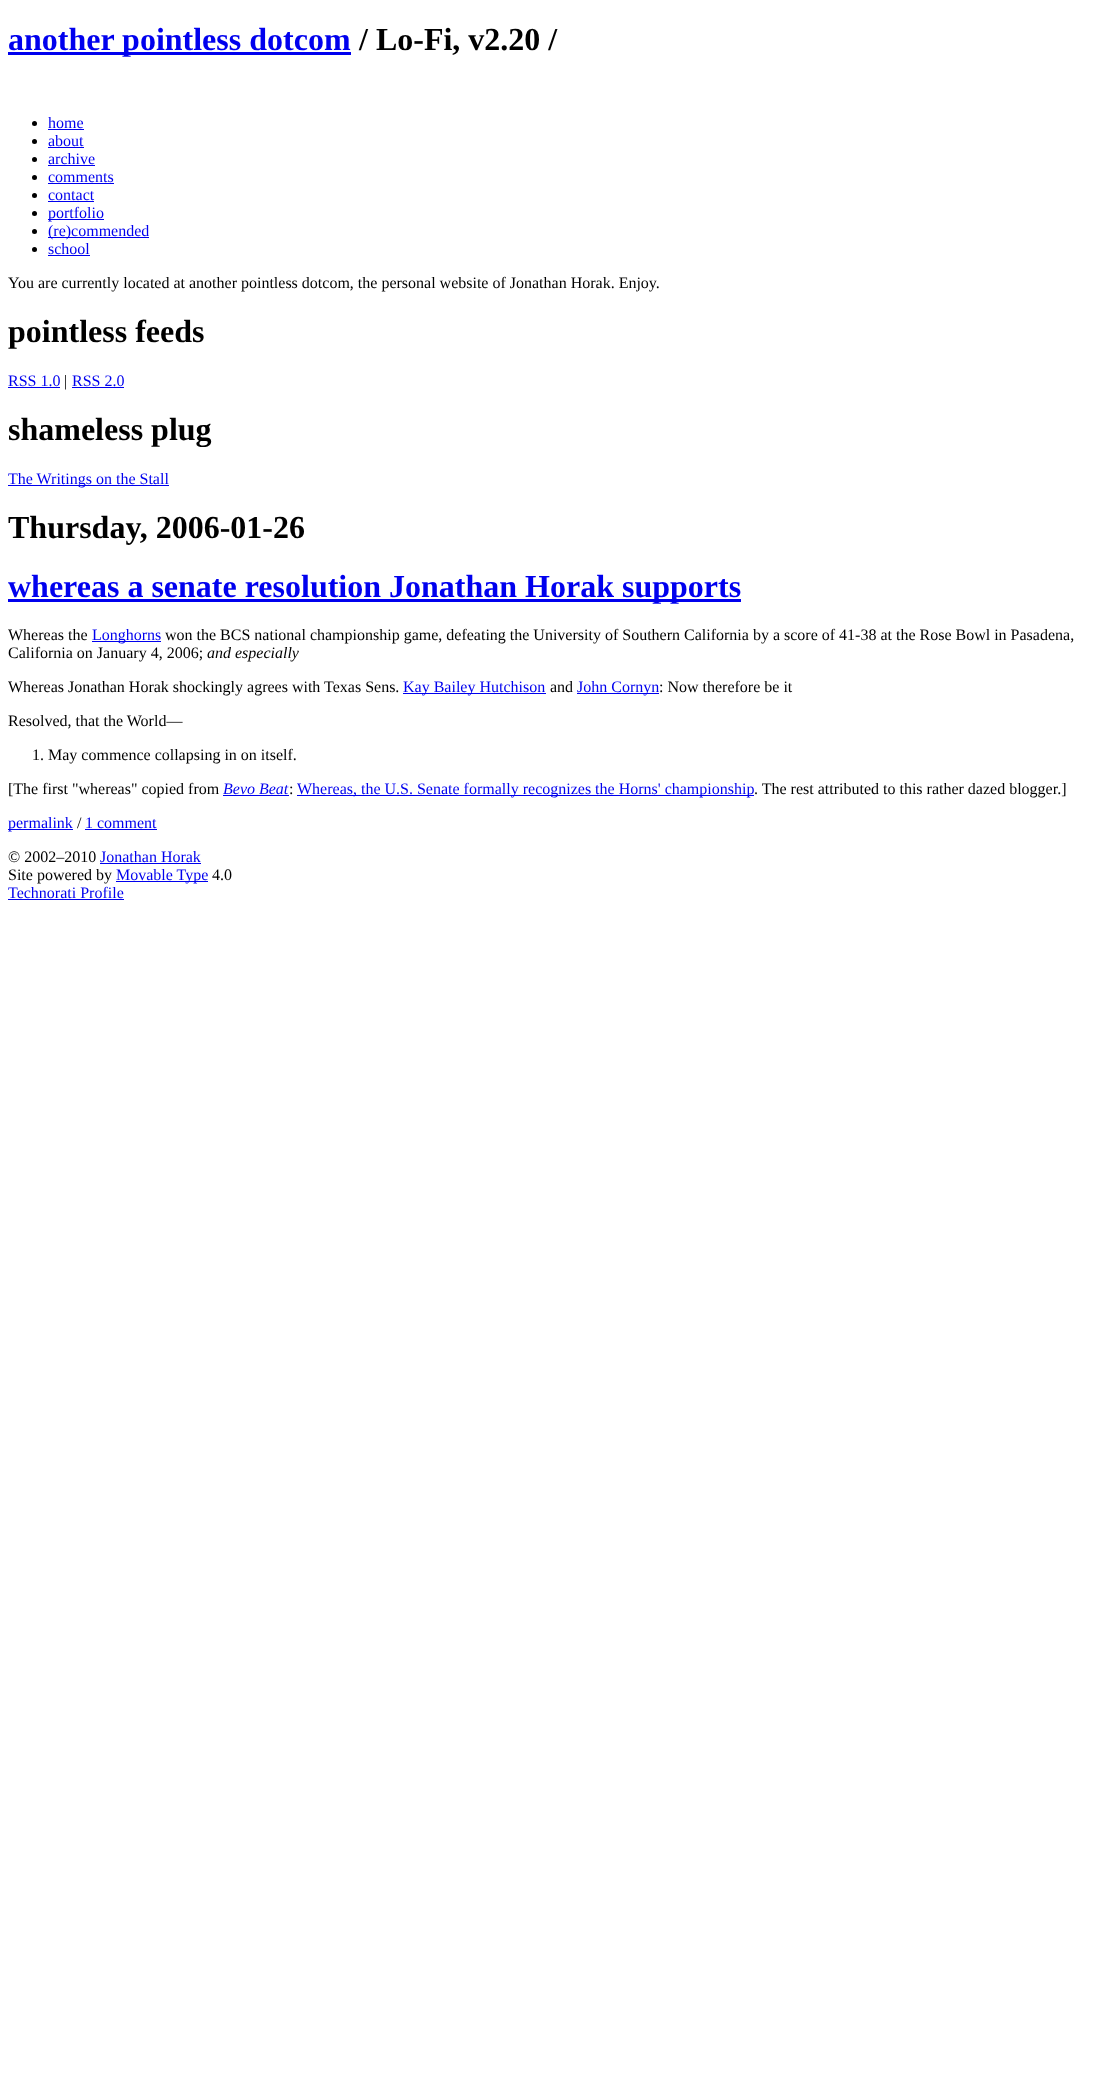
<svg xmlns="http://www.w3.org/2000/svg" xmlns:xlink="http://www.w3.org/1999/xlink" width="1099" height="2095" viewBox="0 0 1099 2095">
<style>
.cls-1{font:bold 32px Liberation Serif;fill:#0000ee}
.cls-2{font:bold 32px Liberation Serif;fill:#000000}
.cls-3{font:16px Liberation Serif;fill:#0000ee}
.cls-4{font:16px Liberation Serif;fill:#000000}
.cls-5{font:italic 16px Liberation Serif;fill:#000000}
.cls-6{font:italic 16px Liberation Serif;fill:#0000ee}
</style>
<rect width="100%" height="100%" fill="#ffffff"/>
<rect fill="#0000ee" x="8" y="52" width="343" height="3"/>
<circle fill="#000000" cx="34.5" cy="123.5" r="2.5"/>
<rect fill="#0000ee" x="48" y="129" width="36" height="1"/>
<circle fill="#000000" cx="34.5" cy="141.5" r="2.5"/>
<rect fill="#0000ee" x="48" y="147" width="36" height="1"/>
<circle fill="#000000" cx="34.5" cy="159.5" r="2.5"/>
<rect fill="#0000ee" x="48" y="165" width="47" height="1"/>
<circle fill="#000000" cx="34.5" cy="177.5" r="2.5"/>
<rect fill="#0000ee" x="48" y="183" width="66" height="1"/>
<circle fill="#000000" cx="34.5" cy="195.5" r="2.5"/>
<rect fill="#0000ee" x="48" y="201" width="46" height="1"/>
<circle fill="#000000" cx="34.5" cy="213.5" r="2.5"/>
<rect fill="#0000ee" x="48" y="219" width="56" height="1"/>
<circle fill="#000000" cx="34.5" cy="231.5" r="2.5"/>
<rect fill="#0000ee" x="48" y="237" width="101" height="1"/>
<circle fill="#000000" cx="34.5" cy="249.5" r="2.5"/>
<rect fill="#0000ee" x="48" y="255" width="42" height="1"/>
<rect fill="#0000ee" x="8" y="387" width="52" height="1"/>
<rect fill="#0000ee" x="72" y="387" width="52" height="1"/>
<rect fill="#0000ee" x="8" y="485" width="161" height="1"/>
<rect fill="#0000ee" x="8" y="599" width="733" height="3"/>
<rect fill="#0000ee" x="92" y="641" width="69" height="1"/>
<rect fill="#0000ee" x="403" y="693" width="143" height="1"/>
<rect fill="#0000ee" x="577" y="693" width="82" height="1"/>
<rect fill="#0000ee" x="223" y="795" width="66" height="1"/>
<rect fill="#0000ee" x="297" y="795" width="457" height="1"/>
<rect fill="#0000ee" x="8" y="829" width="65" height="1"/>
<rect fill="#0000ee" x="85" y="829" width="72" height="1"/>
<rect fill="#0000ee" x="100" y="863" width="101" height="1"/>
<rect fill="#0000ee" x="116" y="881" width="92" height="1"/>
<rect fill="#0000ee" x="8" y="899" width="116" height="1"/>
<text class="cls-1" x="8" y="50">another pointless dotcom</text>
<text class="cls-2" x="359" y="50">/ Lo-Fi, v2.20 /</text>
<text class="cls-3"><tspan x="48" y="128">home</tspan><tspan x="48" y="146">about</tspan><tspan x="48" y="164">archive</tspan><tspan x="48" y="182">comments</tspan><tspan x="48" y="200">contact</tspan><tspan x="48" y="218">portfolio</tspan><tspan x="48" y="236">(re)commended</tspan><tspan x="48" y="254">school</tspan></text>
<text class="cls-4" x="8" y="288">You are currently located at another pointless dotcom, the personal website of Jonathan Horak. Enjoy.</text>
<text class="cls-2" x="8" y="342">pointless feeds</text>
<text class="cls-3" x="8" y="386">RSS 1.0</text>
<text class="cls-4" x="64" y="386">|</text>
<text class="cls-3" x="72" y="386">RSS 2.0</text>
<text class="cls-2" x="8" y="440">shameless plug</text>
<text class="cls-3" x="8" y="484">The Writings on the Stall</text>
<text class="cls-2" x="8" y="538">Thursday, 2006-01-26</text>
<text class="cls-1" x="8" y="597">whereas a senate resolution Jonathan Horak supports</text>
<text class="cls-4" x="8" y="640">Whereas the</text>
<text class="cls-3" x="92" y="640">Longhorns</text>
<text class="cls-4" x="165" y="640">won the BCS national championship game, defeating the University of Southern California by a score of 41-38 at the Rose Bowl in Pasadena,</text>
<text class="cls-4" x="8" y="658">California on January 4, 2006;</text>
<text class="cls-5" x="207" y="658">and especially</text>
<text class="cls-4" x="8" y="692">Whereas Jonathan Horak shockingly agrees with Texas Sens.</text>
<text class="cls-3" x="403" y="692">Kay Bailey Hutchison</text>
<text class="cls-4" x="550" y="692">and</text>
<text class="cls-3" x="577" y="692">John Cornyn</text>
<text class="cls-4" x="659" y="692">: Now therefore be it</text>
<text class="cls-4" x="8" y="726">Resolved, that the World—</text>
<text class="cls-4" x="32" y="760">1. May commence collapsing in on itself.</text>
<text class="cls-4" x="8" y="794">[The first "whereas" copied from</text>
<text class="cls-6" x="223" y="794">Bevo Beat</text>
<text class="cls-4" x="289" y="794">:</text>
<text class="cls-3" x="297" y="794">Whereas, the U.S. Senate formally recognizes the Horns' championship</text>
<text class="cls-4" x="754" y="794">. The rest attributed to this rather dazed blogger.]</text>
<text class="cls-3" x="8" y="828">permalink</text>
<text class="cls-4" x="77" y="828">/</text>
<text class="cls-3" x="85" y="828">1 comment</text>
<text class="cls-4" x="8" y="862">© 2002–2010</text>
<text class="cls-3" x="100" y="862">Jonathan Horak</text>
<text class="cls-4" x="8" y="880">Site powered by</text>
<text class="cls-3" x="116" y="880">Movable Type</text>
<text class="cls-4" x="212" y="880">4.0</text>
<text class="cls-3" x="8" y="898">Technorati Profile</text>
</svg>
